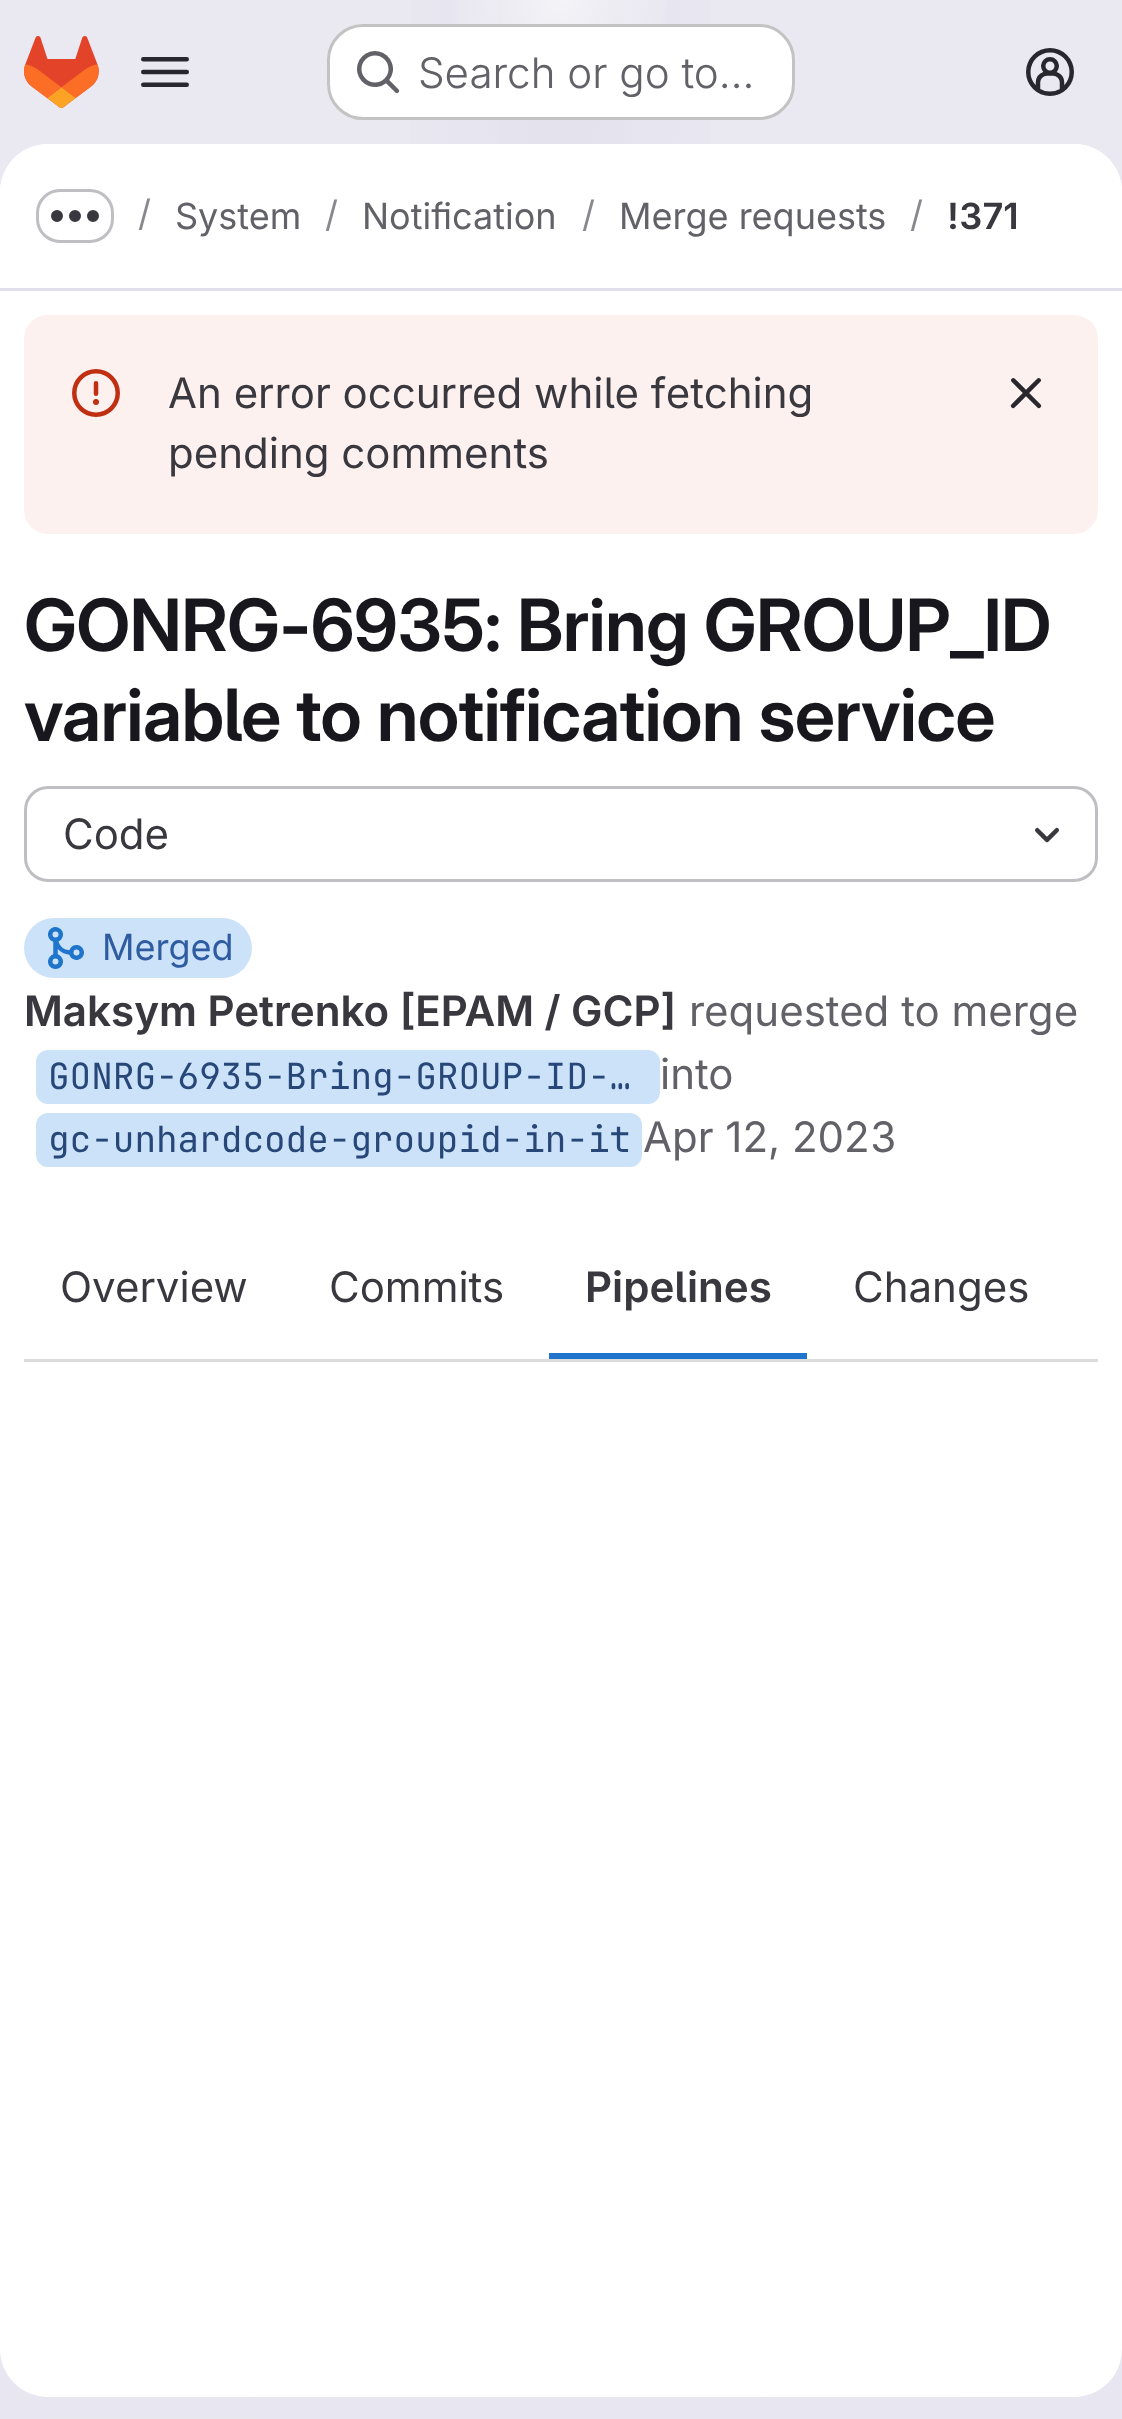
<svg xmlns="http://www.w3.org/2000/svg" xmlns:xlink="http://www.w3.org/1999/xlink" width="1122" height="2419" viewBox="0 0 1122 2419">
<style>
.cls-1{font:300 42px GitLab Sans;fill:#626168}
.cls-2{font:36px GitLab Sans;fill:#89888d}
.cls-3{font:36px GitLab Sans;fill:#626168}
.cls-4{font:600 36px 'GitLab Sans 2';fill:#3a383f}
.cls-5{font:42px GitLab Sans;fill:#3a383f}
.cls-6{font:600 72px GitLab Sans;letter-spacing:-0.75px;fill:#18171d}
.cls-7{font:36px GitLab Sans;fill:#2f5ca0}
.cls-8{font:600 42px 'GitLab Sans 2';fill:#3a383f}
.cls-9{font:42px GitLab Sans;fill:#626168}
.cls-10{font:36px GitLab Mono;fill:#284779}
</style>
<defs>
<linearGradient id="g1" gradientUnits="userSpaceOnUse" x1="785" y1="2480" x2="337" y2="-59"><stop offset="0" stop-color="#e8e6f0"/><stop offset="0.7" stop-color="#eae9f2"/></linearGradient>
<radialGradient id="g2" gradientUnits="userSpaceOnUse" cx="0" cy="0" r="1" gradientTransform="matrix(561 0 0 2421 561 0)"><stop offset="0" stop-color="#e4e2ed"/><stop offset="0.37" stop-color="#e4e2ed" stop-opacity="0"/></radialGradient>
<radialGradient id="g3" gradientUnits="userSpaceOnUse" cx="0" cy="0" r="1" gradientTransform="matrix(561 0 0 2421 561 0)"><stop offset="0" stop-color="#e4e2ec"/><stop offset="0.27" stop-color="#e4e2ec" stop-opacity="0"/></radialGradient>
<radialGradient id="g4" gradientUnits="userSpaceOnUse" cx="561" cy="0" r="2485"><stop offset="0" stop-color="#ffffff" stop-opacity="0.6"/><stop offset="0.05" stop-color="#ffffff" stop-opacity="0"/></radialGradient>
</defs>
<rect width="100%" height="100%" fill="#ffffff"/>
<rect fill="url(#g1)" x="0" y="0" width="1122" height="2419"/>
<rect fill="url(#g2)" x="411" y="0" width="300" height="144"/>
<rect fill="url(#g3)" x="498" y="0" width="126" height="144"/>
<rect fill="url(#g4)" x="455" y="0" width="212" height="24"/>
<image xlink:href="image0.png" x="24" y="36" width="75" height="72"/>
<image xlink:href="image1.png" x="141" y="57" width="48" height="30"/>
<rect fill="#ffffff" x="327" y="24" width="468" height="96" rx="36"/>
<rect fill="none" stroke="#050506" stroke-opacity="0.24" stroke-width="3" x="328.5" y="25.5" width="465" height="93" rx="34.5"/>
<image xlink:href="image2.png" x="357" y="51" width="43" height="43"/>
<image xlink:href="image3.png" x="1026" y="48" width="48" height="48"/>
<rect fill="#ffffff" x="0" y="144" width="1122" height="2253" rx="48"/>
<path fill="#ffffff" d="M48 144H1074C1100.5 144 1122 165.5 1122 192V291H0V192C0 165.5 21.5 144 48 144Z"/>
<rect fill="#e1dfec" x="0" y="288" width="1122" height="3"/>
<rect fill="none" stroke="#bfbfc3" stroke-width="3" x="37.5" y="190.5" width="75" height="51" rx="22.5"/>
<image xlink:href="image4.png" x="51" y="210" width="48" height="12"/>
<rect fill="#fcf1ef" x="24" y="315" width="1074" height="219" rx="24"/>
<image xlink:href="image5.png" x="72" y="369" width="48" height="48"/>
<image xlink:href="image6.png" x="1010" y="378" width="32" height="31"/>
<rect fill="none" stroke="#bfbfc3" stroke-width="3" x="25.5" y="787.5" width="1071" height="93" rx="22.5"/>
<image xlink:href="image7.png" x="1034" y="827" width="26" height="16"/>
<rect fill="#dcdcde" x="24" y="1359" width="1074" height="3"/>
<rect fill="#cbe2f9" x="24" y="918" width="228" height="60" rx="30"/>
<image xlink:href="image8.png" x="48" y="927" width="36" height="42"/>
<rect fill="#cbe2f9" x="36" y="1050" width="624" height="54" rx="12"/>
<rect fill="#cbe2f9" x="36" y="1113" width="606" height="54" rx="12"/>
<rect fill="#1f75cb" x="549" y="1353" width="258" height="6"/>
<text class="cls-1" x="418" y="88">Search or go to…</text>
<text class="cls-2" x="138" y="226">/</text>
<text class="cls-3" x="175" y="229">System</text>
<text class="cls-2" x="325" y="227">/</text>
<text class="cls-3" x="362" y="229">Notification</text>
<text class="cls-2" x="582" y="227">/</text>
<text class="cls-3" x="619" y="229">Merge requests</text>
<text class="cls-2" x="910" y="227">/</text>
<text class="cls-4" x="947" y="229">!371</text>
<text class="cls-5"><tspan x="168" y="408">An error occurred while fetching</tspan><tspan x="168" y="468">pending comments</tspan></text>
<text class="cls-6"><tspan x="24" y="651">GONRG-6935: Bring GROUP_ID</tspan><tspan x="24" y="741">variable to notification service</tspan></text>
<text class="cls-5" x="63" y="849">Code</text>
<text class="cls-7" x="102" y="960">Merged</text>
<text class="cls-8" x="24" y="1026">Maksym Petrenko [EPAM / GCP]</text>
<text class="cls-9" x="689" y="1026">requested to merge</text>
<text class="cls-10" x="48" y="1089">GONRG-6935-Bring-GROUP-ID-…</text>
<text class="cls-9" x="660" y="1089">into</text>
<text class="cls-10" x="48" y="1152">gc-unhardcode-groupid-in-it</text>
<text class="cls-9" x="643" y="1152">Apr 12, 2023</text>
<text class="cls-5" x="60" y="1302">Overview</text>
<text class="cls-5" x="329" y="1302">Commits</text>
<text class="cls-8" x="585" y="1302">Pipelines</text>
<text class="cls-5" x="853" y="1302">Changes</text>
</svg>
